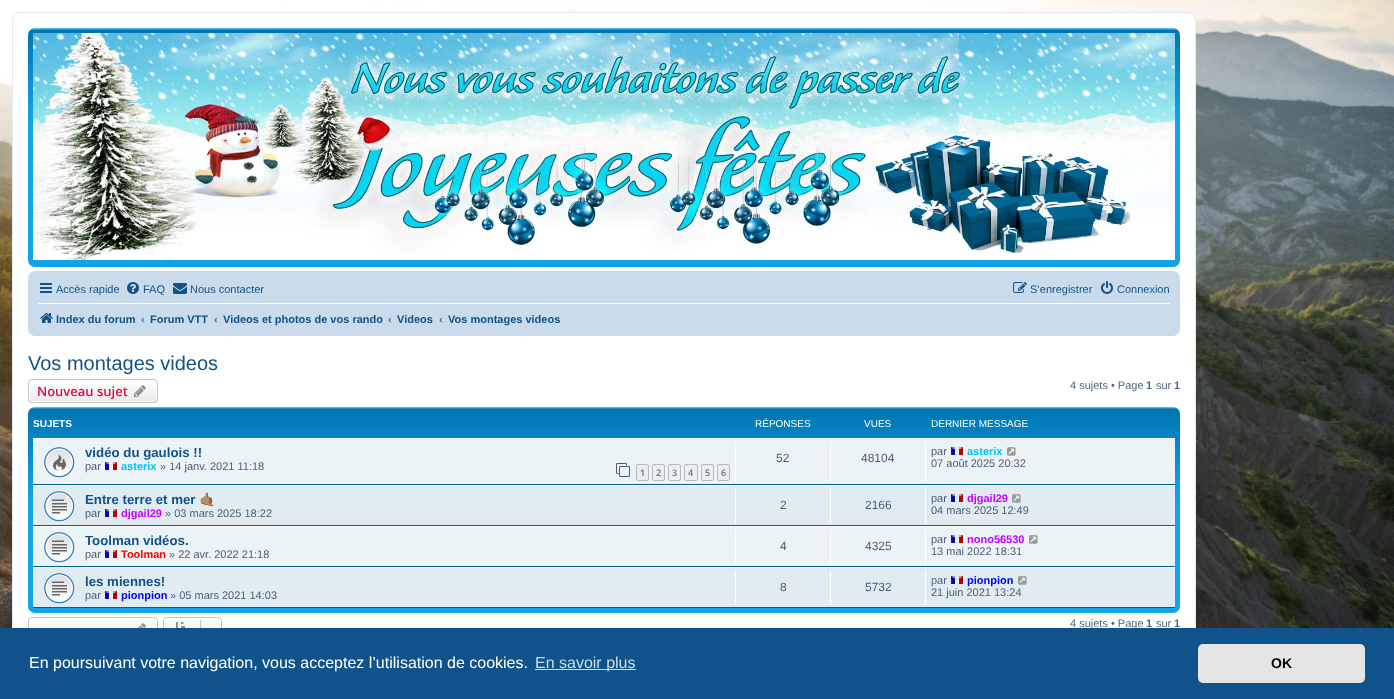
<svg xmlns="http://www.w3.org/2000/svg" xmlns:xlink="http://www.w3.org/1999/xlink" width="1394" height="699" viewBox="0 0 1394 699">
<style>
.cls-1{font:11px Liberation Sans;fill:#105289}
.cls-2{font:bold 11px Liberation Sans;fill:#105289}
.cls-3{font:bold 11px Liberation Sans;fill:#536482}
.cls-4{font:20px Liberation Sans;fill:#105289}
.cls-5{font:600 13px Open Sans;fill:#d31141}
.cls-6{font:11px Liberation Sans;fill:#536482}
.cls-7{font:bold 10px Liberation Sans;fill:#ffffff}
.cls-8{font:10px Liberation Sans;fill:#ffffff}
.cls-9{font:bold 13.25px Liberation Sans;fill:#105289}
.cls-10{font:11px Liberation Sans;fill:#4c5d77}
.cls-11{font:bold 11px Liberation Sans;fill:#00bfff}
.cls-12{font:600 9px Open Sans;fill:#5c758c}
.cls-13{font:12px Liberation Sans;fill:#4c5d77}
.cls-14{font:bold 13.25px Noto Color Emoji;fill:#105289}
.cls-15{font:bold 11px Liberation Sans;fill:#bf00ff}
.cls-16{font:bold 11px Liberation Sans;fill:#ff0000}
.cls-17{font:bold 11px Liberation Sans;fill:#0000ff}
.cls-18{font:16px Liberation Sans;fill:#ffffff}
.cls-19{font:16px Liberation Sans;fill:#cfdde8}
.cls-20{font:bold 14px Liberation Sans;fill:#000000}
</style>
<defs>
<linearGradient id="g1" gradientUnits="userSpaceOnUse" x1="604" y1="28" x2="604" y2="267"><stop offset="0" stop-color="#6aceff"/><stop offset="0.01" stop-color="#0076b1"/><stop offset="0.38" stop-color="#12a3eb"/><stop offset="1" stop-color="#12a3eb"/></linearGradient>
<clipPath id="clip1"><rect x="28" y="379" width="130" height="24" rx="4"/></clipPath>
<linearGradient id="g2" gradientUnits="userSpaceOnUse" x1="93" y1="380" x2="93" y2="402"><stop offset="0" stop-color="#ffffff"/><stop offset="1" stop-color="#e9e9e9"/></linearGradient>
<linearGradient id="g3" gradientUnits="userSpaceOnUse" x1="604" y1="407" x2="604" y2="613"><stop offset="0" stop-color="#6aceff"/><stop offset="0.01" stop-color="#0076b1"/><stop offset="0.45" stop-color="#12a3eb"/><stop offset="1" stop-color="#12a3eb"/></linearGradient>
<clipPath id="clip2"><rect x="28" y="617" width="130" height="24" rx="4"/></clipPath>
<linearGradient id="g4" gradientUnits="userSpaceOnUse" x1="93" y1="618" x2="93" y2="640"><stop offset="0" stop-color="#ffffff"/><stop offset="1" stop-color="#e9e9e9"/></linearGradient>
<clipPath id="clip3"><rect x="163" y="617" width="59" height="24" rx="4"/></clipPath>
<linearGradient id="g5" gradientUnits="userSpaceOnUse" x1="193" y1="618" x2="193" y2="640"><stop offset="0" stop-color="#ffffff"/><stop offset="1" stop-color="#e9e9e9"/></linearGradient>
</defs>
<rect width="100%" height="100%" fill="#ffffff"/>
<image xlink:href="image0.png" x="0" y="0" width="1394" height="628"/>
<rect fill="#ffffff" stroke="#e6e9ed" x="12.5" y="12.5" width="1183" height="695" rx="7.5"/>
<rect fill="url(#g1)" x="28" y="28" width="1152" height="239" rx="7"/>
<image xlink:href="image1.png" x="33" y="33" width="1142" height="227"/>
<rect fill="#cadceb" x="28" y="271" width="1152" height="65" rx="7"/>
<image xlink:href="image2.png" x="40" y="283" width="12" height="10"/>
<image xlink:href="image3.png" x="127" y="282" width="12" height="12"/>
<image xlink:href="image4.png" x="173" y="283" width="14" height="11"/>
<image xlink:href="image5.png" x="1013" y="282" width="14" height="11"/>
<image xlink:href="image6.png" x="1101" y="281" width="12" height="13"/>
<rect fill="#ffffff" x="38" y="303" width="1132" height="1"/>
<image xlink:href="image7.png" x="40" y="313" width="13" height="10"/>
<g clip-path="url(#clip1)">
<rect fill="url(#g2)" x="28" y="380" width="130" height="22"/>
</g>
<rect fill="none" stroke="#ffffff" x="29.5" y="380.5" width="127" height="21" rx="2.5"/>
<rect fill="none" stroke="#c7c3bf" x="28.5" y="379.5" width="129" height="23" rx="3.5"/>
<image xlink:href="image8.png" x="134" y="385" width="12" height="12"/>
<rect fill="url(#g3)" x="28" y="407" width="1152" height="206" rx="7"/>
<rect fill="#ecf3f7" x="33" y="439" width="1142" height="45"/>
<rect fill="#ffffff" x="33" y="438" width="1142" height="1"/>
<rect fill="#00608f" x="33" y="484" width="1142" height="1"/>
<image xlink:href="image9.png" x="44" y="447" width="31" height="31"/>
<image xlink:href="image10.png" x="105" y="462" width="12" height="8"/>
<image xlink:href="image11.png" x="616" y="463" width="14" height="14"/>
<rect fill="#ecedee" stroke="#b4bac0" x="636.5" y="464.5" width="12" height="16" rx="1.5"/>
<rect fill="#ecedee" stroke="#b4bac0" x="652.5" y="464.5" width="12" height="16" rx="1.5"/>
<rect fill="#ecedee" stroke="#b4bac0" x="668.5" y="464.5" width="12" height="16" rx="1.5"/>
<rect fill="#ecedee" stroke="#b4bac0" x="684.5" y="464.5" width="13" height="16" rx="1.5"/>
<rect fill="#ecedee" stroke="#b4bac0" x="701.5" y="464.5" width="12" height="16" rx="1.5"/>
<rect fill="#ecedee" stroke="#b4bac0" x="717.5" y="464.5" width="12" height="16" rx="1.5"/>
<rect fill="#ffffff" x="735" y="441" width="1" height="41"/>
<rect fill="#ffffff" x="830" y="441" width="1" height="41"/>
<rect fill="#ffffff" x="925" y="441" width="1" height="41"/>
<image xlink:href="image10.png" x="951" y="447" width="12" height="8"/>
<image xlink:href="image12.png" x="1007" y="447" width="9" height="9"/>
<rect fill="#e1ebf2" x="33" y="486" width="1142" height="39"/>
<rect fill="#ffffff" x="33" y="485" width="1142" height="1"/>
<rect fill="#00608f" x="33" y="525" width="1142" height="1"/>
<image xlink:href="image13.png" x="44" y="491" width="31" height="31"/>
<image xlink:href="image14.png" x="105" y="509" width="12" height="8"/>
<rect fill="#ffffff" x="735" y="488" width="1" height="35"/>
<rect fill="#ffffff" x="830" y="488" width="1" height="35"/>
<rect fill="#ffffff" x="925" y="488" width="1" height="35"/>
<image xlink:href="image14.png" x="951" y="494" width="12" height="8"/>
<image xlink:href="image15.png" x="1012" y="494" width="9" height="9"/>
<rect fill="#ecf3f7" x="33" y="527" width="1142" height="39"/>
<rect fill="#ffffff" x="33" y="526" width="1142" height="1"/>
<rect fill="#00608f" x="33" y="566" width="1142" height="1"/>
<image xlink:href="image16.png" x="44" y="532" width="31" height="31"/>
<image xlink:href="image10.png" x="105" y="550" width="12" height="8"/>
<rect fill="#ffffff" x="735" y="529" width="1" height="35"/>
<rect fill="#ffffff" x="830" y="529" width="1" height="35"/>
<rect fill="#ffffff" x="925" y="529" width="1" height="35"/>
<image xlink:href="image10.png" x="951" y="535" width="12" height="8"/>
<image xlink:href="image12.png" x="1029" y="535" width="9" height="9"/>
<rect fill="#e1ebf2" x="33" y="568" width="1142" height="39"/>
<rect fill="#ffffff" x="33" y="567" width="1142" height="1"/>
<rect fill="#00608f" x="33" y="607" width="1142" height="1"/>
<image xlink:href="image13.png" x="44" y="573" width="31" height="31"/>
<image xlink:href="image14.png" x="105" y="591" width="12" height="8"/>
<rect fill="#ffffff" x="735" y="570" width="1" height="35"/>
<rect fill="#ffffff" x="830" y="570" width="1" height="35"/>
<rect fill="#ffffff" x="925" y="570" width="1" height="35"/>
<image xlink:href="image14.png" x="951" y="576" width="12" height="8"/>
<image xlink:href="image15.png" x="1018" y="576" width="9" height="9"/>
<g clip-path="url(#clip2)">
<rect fill="url(#g4)" x="28" y="618" width="130" height="10"/>
</g>
<rect fill="none" stroke="#ffffff" x="29.5" y="618.5" width="127" height="21" rx="2.5"/>
<rect fill="none" stroke="#c7c3bf" x="28.5" y="617.5" width="129" height="23" rx="3.5"/>
<image xlink:href="image17.png" x="137" y="623" width="9" height="5"/>
<g clip-path="url(#clip3)">
<rect fill="url(#g5)" x="163" y="618" width="59" height="10"/>
</g>
<rect fill="none" stroke="#ffffff" x="164.5" y="618.5" width="56" height="21" rx="2.5"/>
<rect fill="none" stroke="#c7c3bf" x="163.5" y="617.5" width="58" height="23" rx="3.5"/>
<image xlink:href="image18.png" x="176" y="622" width="9" height="6"/>
<rect fill="#c7c3bf" x="200" y="620" width="1" height="8"/>
<text class="cls-1" x="56" y="293">Accès rapide</text>
<text class="cls-1" x="143" y="293">FAQ</text>
<text class="cls-1" x="190" y="293">Nous contacter</text>
<text class="cls-1" x="1030" y="293">S’enregistrer</text>
<text class="cls-1" x="1117" y="293">Connexion</text>
<text class="cls-2" x="56" y="323">Index du forum</text>
<text class="cls-3" x="141" y="323">‹</text>
<text class="cls-2" x="150" y="323">Forum VTT</text>
<text class="cls-3" x="214" y="323">‹</text>
<text class="cls-2" x="223" y="323">Videos et photos de vos rando</text>
<text class="cls-3" x="388" y="323">‹</text>
<text class="cls-2" x="397" y="323">Videos</text>
<text class="cls-3" x="439" y="323">‹</text>
<text class="cls-2" x="448" y="323">Vos montages videos</text>
<text class="cls-4" x="28" y="370">Vos montages videos</text>
<text class="cls-5" x="37" y="396">Nouveau sujet</text>
<text class="cls-6" x="1070" y="389">4 sujets • Page</text>
<text class="cls-3" x="1146" y="389">1</text>
<text class="cls-6" x="1156" y="389">sur</text>
<text class="cls-3" x="1174" y="389">1</text>
<text class="cls-7" x="33" y="427">SUJETS</text>
<text class="cls-8" x="755" y="427">RÉPONSES</text>
<text class="cls-8" x="864" y="427">VUES</text>
<text class="cls-8" x="931" y="427">DERNIER MESSAGE</text>
<text class="cls-9" x="85" y="457">vidéo du gaulois !!</text>
<text class="cls-10" x="85" y="470">par</text>
<text class="cls-11" x="121" y="470">asterix</text>
<text class="cls-10" x="160" y="470">» 14 janv. 2021 11:18</text>
<text class="cls-12" x="640" y="476">1</text>
<text class="cls-12" x="656" y="476">2</text>
<text class="cls-12" x="672" y="476">3</text>
<text class="cls-12" x="688" y="476">4</text>
<text class="cls-12" x="705" y="476">5</text>
<text class="cls-12" x="721" y="476">6</text>
<text class="cls-13" x="776" y="462">52</text>
<text class="cls-13" x="861" y="462">48104</text>
<text class="cls-10" x="931" y="455">par</text>
<text class="cls-11" x="967" y="455">asterix</text>
<text class="cls-10" x="931" y="467">07 août 2025 20:32</text>
<text class="cls-9" x="85" y="504">Entre terre et mer</text>
<text class="cls-14" x="199" y="504">🤙🏽</text>
<text class="cls-10" x="85" y="517">par</text>
<text class="cls-15" x="121" y="517">djgail29</text>
<text class="cls-10" x="165" y="517">» 03 mars 2025 18:22</text>
<text class="cls-13" x="780" y="509">2</text>
<text class="cls-13" x="865" y="509">2166</text>
<text class="cls-10" x="931" y="502">par</text>
<text class="cls-15" x="967" y="502">djgail29</text>
<text class="cls-10" x="931" y="514">04 mars 2025 12:49</text>
<text class="cls-9" x="85" y="545">Toolman vidéos.</text>
<text class="cls-10" x="85" y="558">par</text>
<text class="cls-16" x="121" y="558">Toolman</text>
<text class="cls-10" x="169" y="558">» 22 avr. 2022 21:18</text>
<text class="cls-13" x="780" y="550">4</text>
<text class="cls-13" x="865" y="550">4325</text>
<text class="cls-10" x="931" y="543">par</text>
<text class="cls-15" x="967" y="543">nono56530</text>
<text class="cls-10" x="931" y="555">13 mai 2022 18:31</text>
<text class="cls-9" x="85" y="586">les miennes!</text>
<text class="cls-10" x="85" y="599">par</text>
<text class="cls-17" x="121" y="599">pionpion</text>
<text class="cls-10" x="170" y="599">» 05 mars 2021 14:03</text>
<text class="cls-13" x="780" y="591">8</text>
<text class="cls-13" x="865" y="591">5732</text>
<text class="cls-10" x="931" y="584">par</text>
<text class="cls-17" x="967" y="584">pionpion</text>
<text class="cls-10" x="931" y="596">21 juin 2021 13:24</text>
<text class="cls-6" x="1070" y="627">4 sujets • Page</text>
<text class="cls-3" x="1146" y="627">1</text>
<text class="cls-6" x="1156" y="627">sur</text>
<text class="cls-3" x="1174" y="627">1</text>
<rect fill="#0f538a" x="0" y="628" width="1394" height="71"/>
<text class="cls-18" x="29" y="668">En poursuivant votre navigation, vous acceptez l’utilisation de cookies.</text>
<rect fill="#cfdde8" x="535" y="669" width="101" height="1"/>
<text class="cls-19" x="535" y="668">En savoir plus</text>
<rect fill="#e5e5e5" x="1198" y="644" width="167" height="39" rx="5"/>
<text class="cls-20" x="1271" y="668">OK</text>
</svg>
